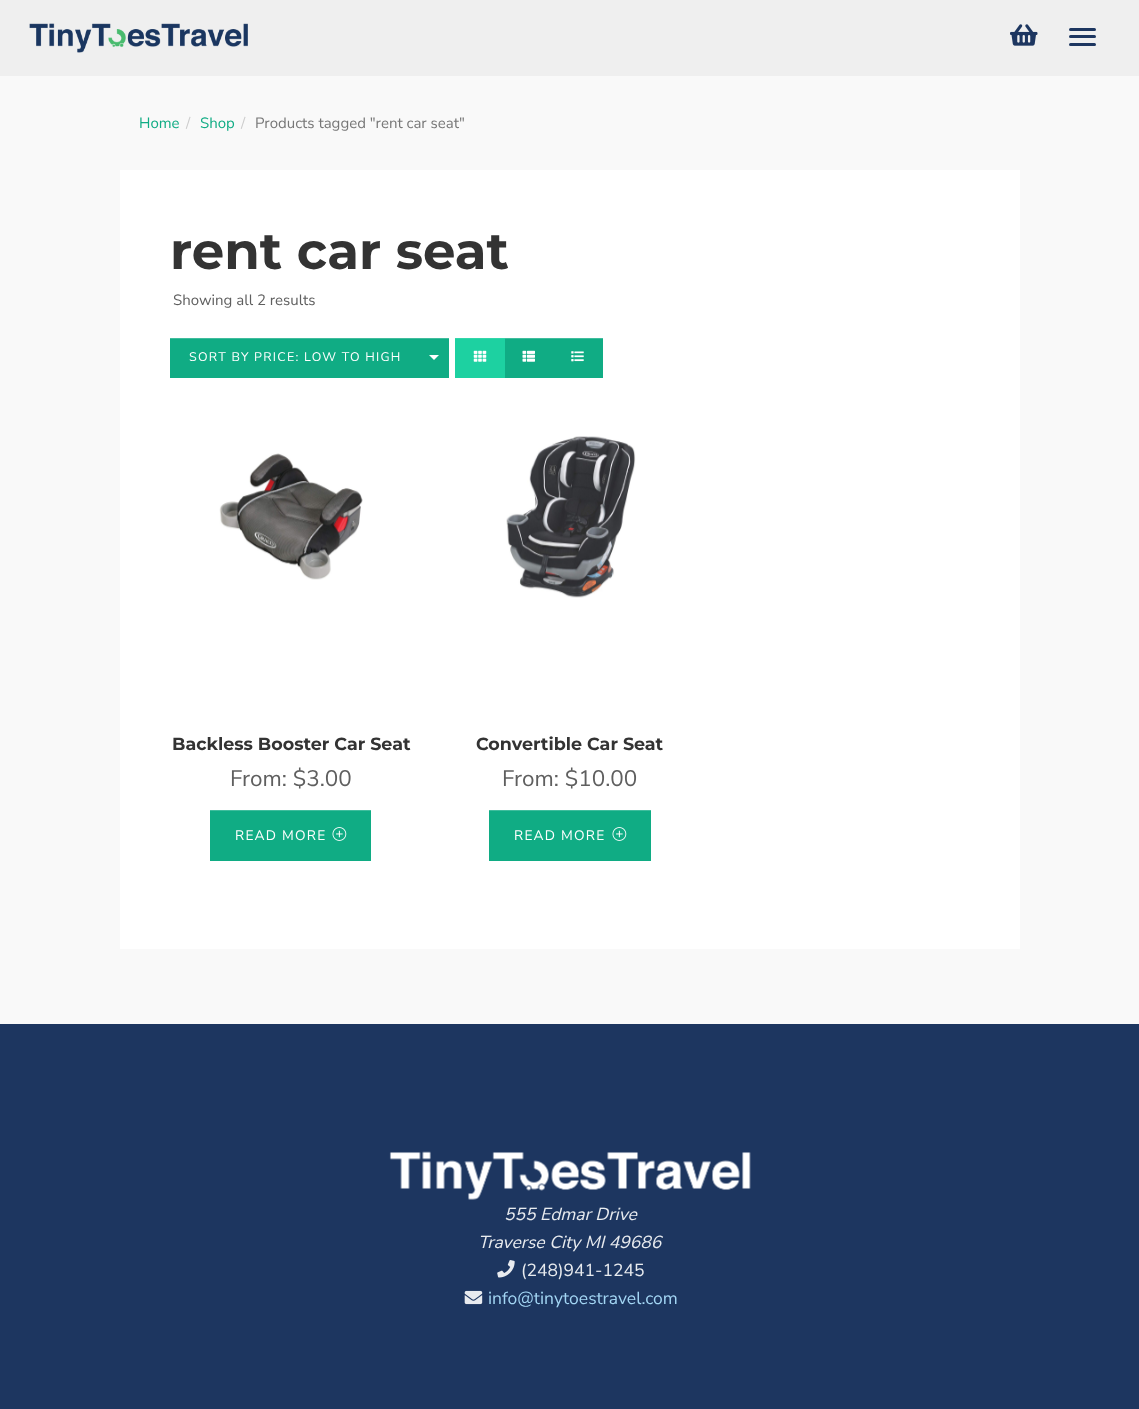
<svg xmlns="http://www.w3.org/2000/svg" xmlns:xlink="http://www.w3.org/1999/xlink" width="1139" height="1409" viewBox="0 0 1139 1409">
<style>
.cls-1{font:15px Nunito Sans;fill:#10ac84}
.cls-2{font:15px Nunito Sans;fill:#cccccc}
.cls-3{font:15px Nunito Sans;fill:#777777}
.cls-4{font:bold 51.5px Montserrat;fill:#333333}
.cls-5{font:15px Nunito Sans;fill:#5f5f5f}
.cls-6{font:12.5px Nunito Sans;letter-spacing:1.25px;fill:#ffffff}
.cls-7{font:bold 17.5px Montserrat;fill:#333333}
.cls-8{font:22.5px Nunito Sans;fill:#5f5f5f}
.cls-9{font:13.75px Nunito Sans;letter-spacing:1.25px;fill:#ffffff}
.cls-10{font:italic 17.5px Nunito Sans;fill:#e8ebef}
.cls-11{font:17.5px Nunito Sans;fill:#e8ebef}
.cls-12{font:17.5px Nunito Sans;fill:#a3d6f4}
</style>
<rect width="100%" height="100%" fill="#f9f9f9"/>
<rect fill="#efefef" x="0" y="0" width="1139" height="76"/>
<image xlink:href="image0.png" x="29" y="23" width="219" height="30"/>
<image xlink:href="image1.png" x="1010" y="24" width="28" height="22"/>
<rect fill="#1d3660" x="1069" y="28" width="27" height="3" rx="1.5"/>
<rect fill="#1d3660" x="1069" y="35" width="27" height="3" rx="1.5"/>
<rect fill="#1d3660" x="1069" y="43" width="27" height="3" rx="1.5"/>
<rect fill="#ffffff" x="120" y="170" width="900" height="779"/>
<rect fill="#10ac84" x="170" y="339" width="279" height="39"/>
<rect fill="#40bd9d" x="170" y="338" width="279" height="1"/>
<path fill="#ffffff" d="M429 355H439L434 360Z"/>
<rect fill="#1dd1a1" x="455" y="339" width="50" height="39"/>
<rect fill="#40bd9d" x="504" y="338" width="99" height="1"/>
<rect fill="#34d6aa" x="455" y="338" width="50" height="1"/>
<image xlink:href="image2.png" x="473" y="350" width="14" height="12"/>
<rect fill="#10ac84" x="505" y="339" width="98" height="39"/>
<image xlink:href="image3.png" x="522" y="350" width="13" height="12"/>
<image xlink:href="image4.png" x="571" y="351" width="13" height="11"/>
<image xlink:href="image5.png" x="219" y="453" width="144" height="127"/>
<rect fill="#10ac84" x="210" y="811" width="161" height="50"/>
<rect fill="#40bd9d" x="210" y="810" width="161" height="1"/>
<image xlink:href="image6.png" x="332" y="827" width="15" height="14"/>
<image xlink:href="image7.png" x="506" y="436" width="130" height="162"/>
<rect fill="#10ac84" x="489" y="811" width="162" height="50"/>
<rect fill="#40bd9d" x="489" y="810" width="162" height="1"/>
<image xlink:href="image6.png" x="612" y="827" width="15" height="14"/>
<rect fill="#1d3660" x="0" y="1024" width="1139" height="385"/>
<image xlink:href="image8.png" x="389" y="1151" width="362" height="49"/>
<image xlink:href="image9.png" x="497" y="1260" width="18" height="18"/>
<image xlink:href="image10.png" x="464" y="1290" width="19" height="15"/>
<text class="cls-1" x="139" y="128">Home</text>
<text class="cls-2" x="186" y="128">/</text>
<text class="cls-1" x="200" y="128">Shop</text>
<text class="cls-2" x="241" y="128">/</text>
<text class="cls-3" x="255" y="128">Products tagged "rent car seat"</text>
<text class="cls-4" x="170" y="269">rent car seat</text>
<text class="cls-5" x="173" y="305">Showing all 2 results</text>
<text class="cls-6" x="189" y="361">SORT BY PRICE: LOW TO HIGH</text>
<text class="cls-7" x="172" y="750">Backless Booster Car Seat</text>
<text class="cls-8" x="230" y="786">From: $3.00</text>
<text class="cls-9" x="235" y="840">READ MORE</text>
<text class="cls-7" x="476" y="750">Convertible Car Seat</text>
<text class="cls-8" x="502" y="786">From: $10.00</text>
<text class="cls-9" x="514" y="840">READ MORE</text>
<text class="cls-10" x="504" y="1220">555 Edmar Drive</text>
<text class="cls-10" x="478" y="1248">Traverse City MI 49686</text>
<text class="cls-11" x="521" y="1276">(248)941-1245</text>
<text class="cls-12" x="488" y="1304">info@tinytoestravel.com</text>
</svg>
